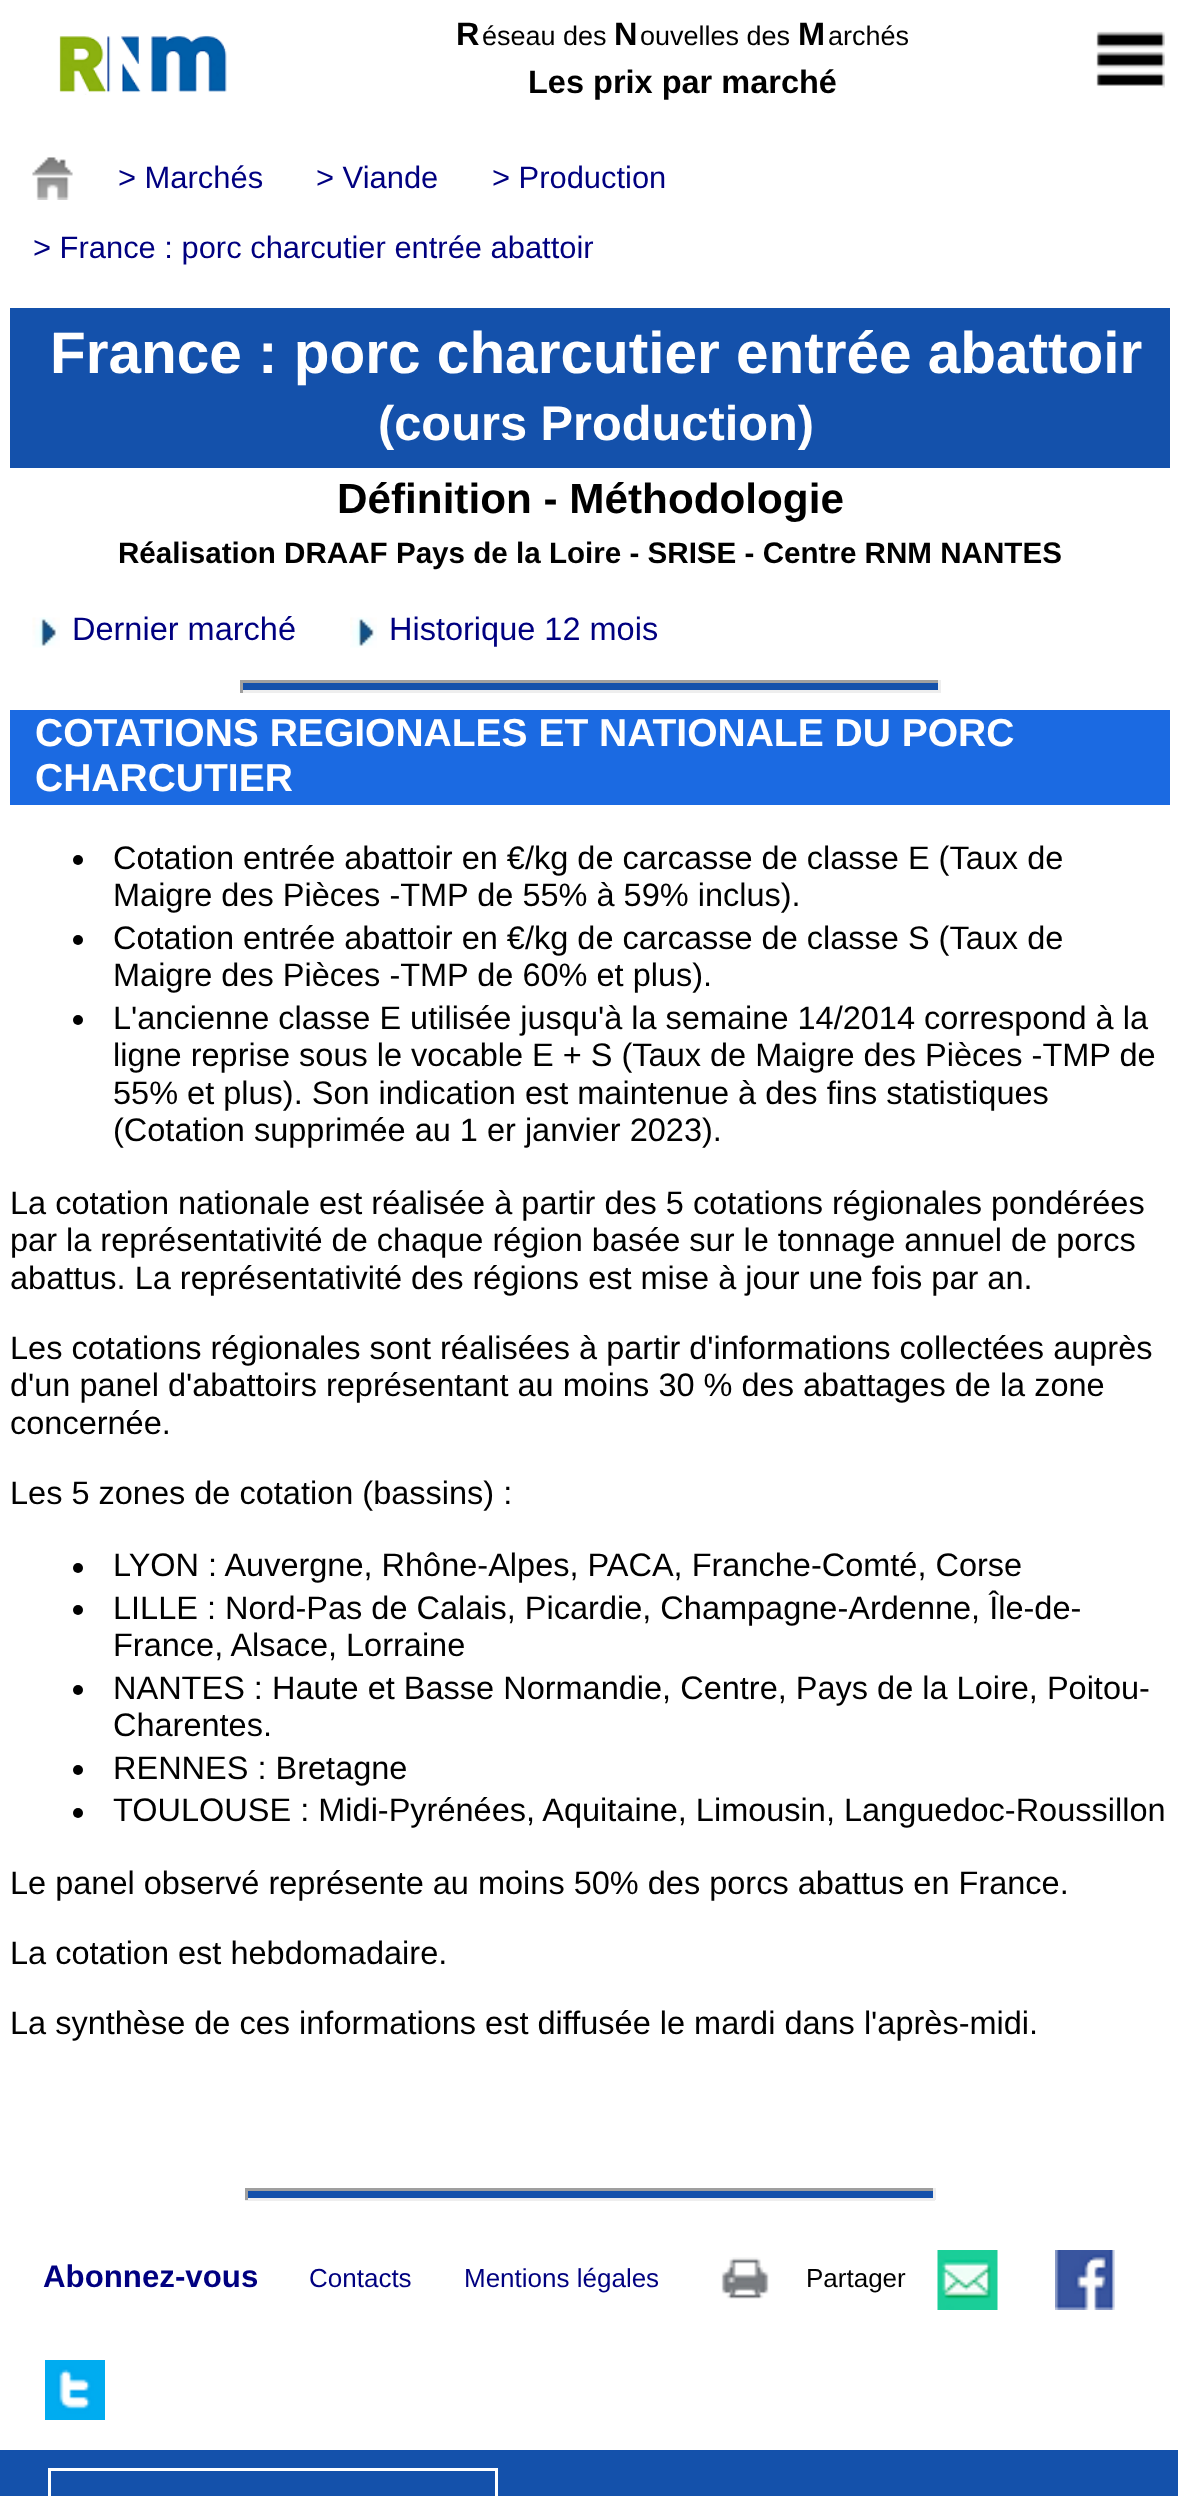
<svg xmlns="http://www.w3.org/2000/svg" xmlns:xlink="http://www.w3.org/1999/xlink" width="1178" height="2496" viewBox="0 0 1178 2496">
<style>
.cls-1{font:bold 32.5px Liberation Sans;fill:#000000}
.cls-2{font:27px Liberation Sans;fill:#000000}
.cls-3{font:30.9px Liberation Sans;fill:#000080}
.cls-4{font:bold 58.5px Liberation Sans;fill:#ffffff}
.cls-5{font:bold 48.75px Liberation Sans;fill:#ffffff}
.cls-6{font:bold 42.25px Liberation Sans;fill:#000000}
.cls-7{font:bold 29.6px Liberation Sans;fill:#000000}
.cls-8{font:32.5px Liberation Sans;fill:#000080}
.cls-9{font:bold 39px Liberation Sans;fill:#ffffff}
.cls-10{font:32.5px Liberation Sans;fill:#000000}
.cls-11{font:bold 31.25px Liberation Sans;fill:#000080}
.cls-12{font:26px Liberation Sans;fill:#000080}
.cls-13{font:26px Liberation Sans;fill:#000000}
</style>
<rect width="100%" height="100%" fill="#ffffff"/>
<image xlink:href="image0.png" x="59" y="35" width="168" height="60"/>
<image xlink:href="image1.png" x="1096" y="31" width="69" height="57"/>
<image xlink:href="image2.png" x="32" y="157" width="41" height="43"/>
<rect fill="#1451ab" x="10" y="308" width="1160" height="160"/>
<image xlink:href="image3.png" x="32" y="617" width="28" height="31"/>
<image xlink:href="image4.png" x="350" y="617" width="27" height="31"/>
<rect fill="#1451ab" x="243" y="683" width="695" height="7"/>
<rect fill="#9f9f9f" x="240" y="680" width="700" height="3"/>
<rect fill="#eeeeee" x="938" y="680" width="3" height="13"/>
<rect fill="#eeeeee" x="240" y="690" width="700" height="3"/>
<rect fill="#9f9f9f" x="240" y="680" width="3" height="13"/>
<rect fill="#1b6ae2" x="10" y="710" width="1160" height="95"/>
<circle fill="#000000" cx="78" cy="860" r="5"/>
<circle fill="#000000" cx="78" cy="940" r="5"/>
<circle fill="#000000" cx="78" cy="1020" r="5"/>
<circle fill="#000000" cx="78" cy="1568" r="5"/>
<circle fill="#000000" cx="78" cy="1610" r="5"/>
<circle fill="#000000" cx="78" cy="1690" r="5"/>
<circle fill="#000000" cx="78" cy="1770" r="5"/>
<circle fill="#000000" cx="78" cy="1813" r="5"/>
<rect fill="#1451ab" x="248" y="2191" width="685" height="7"/>
<rect fill="#9f9f9f" x="245" y="2188" width="690" height="3"/>
<rect fill="#eeeeee" x="933" y="2188" width="3" height="12"/>
<rect fill="#eeeeee" x="245" y="2198" width="690" height="3"/>
<rect fill="#9f9f9f" x="245" y="2188" width="3" height="12"/>
<image xlink:href="image5.png" x="721" y="2257" width="48" height="42"/>
<image xlink:href="image6.png" x="937" y="2250" width="61" height="60"/>
<image xlink:href="image7.png" x="1055" y="2250" width="60" height="60"/>
<image xlink:href="image8.png" x="45" y="2360" width="60" height="60"/>
<rect fill="#1451ab" x="0" y="2450" width="1178" height="46"/>
<rect fill="none" stroke="#ffffff" stroke-width="3" x="49.5" y="2469.5" width="447" height="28"/>
<text class="cls-1" x="456" y="45">R</text>
<text class="cls-2" x="482" y="45">éseau des</text>
<text class="cls-1" x="614" y="45">N</text>
<text class="cls-2" x="640" y="45">ouvelles des</text>
<text class="cls-1" x="798" y="45">M</text>
<text class="cls-2" x="828" y="45">archés</text>
<text class="cls-1" x="528" y="93">Les prix par marché</text>
<text class="cls-3" x="118" y="188">&gt; Marchés</text>
<text class="cls-3" x="316" y="188">&gt; Viande</text>
<text class="cls-3" x="492" y="188">&gt; Production</text>
<text class="cls-3" x="33" y="258">&gt; France : porc charcutier entrée abattoir</text>
<text class="cls-4" x="50" y="373">France : porc charcutier entrée abattoir</text>
<text class="cls-5" x="378" y="440">(cours Production)</text>
<text class="cls-6" x="337" y="513">Définition - Méthodologie</text>
<text class="cls-7" x="118" y="563">Réalisation DRAAF Pays de la Loire - SRISE - Centre RNM NANTES</text>
<text class="cls-8" x="72" y="640">Dernier marché</text>
<text class="cls-8" x="389" y="640">Historique 12 mois</text>
<text class="cls-9"><tspan x="35" y="746">COTATIONS REGIONALES ET NATIONALE DU PORC</tspan><tspan x="35" y="791">CHARCUTIER</tspan></text>
<text class="cls-10"><tspan x="113" y="869">Cotation entrée abattoir en €/kg de carcasse de classe E (Taux de</tspan><tspan x="113" y="906">Maigre des Pièces -TMP de 55% à 59% inclus).</tspan><tspan x="113" y="949">Cotation entrée abattoir en €/kg de carcasse de classe S (Taux de</tspan><tspan x="113" y="986">Maigre des Pièces -TMP de 60% et plus).</tspan><tspan x="113" y="1029">L'ancienne classe E utilisée jusqu'à la semaine 14/2014 correspond à la</tspan><tspan x="113" y="1066">ligne reprise sous le vocable E + S (Taux de Maigre des Pièces -TMP de</tspan><tspan x="113" y="1104">55% et plus). Son indication est maintenue à des fins statistiques</tspan><tspan x="113" y="1141">(Cotation supprimée au 1 er janvier 2023).</tspan></text>
<text class="cls-10"><tspan x="10" y="1214">La cotation nationale est réalisée à partir des 5 cotations régionales pondérées</tspan><tspan x="10" y="1251">par la représentativité de chaque région basée sur le tonnage annuel de porcs</tspan><tspan x="10" y="1289">abattus. La représentativité des régions est mise à jour une fois par an.</tspan></text>
<text class="cls-10"><tspan x="10" y="1359">Les cotations régionales sont réalisées à partir d'informations collectées auprès</tspan><tspan x="10" y="1396">d'un panel d'abattoirs représentant au moins 30 % des abattages de la zone</tspan><tspan x="10" y="1434">concernée.</tspan></text>
<text class="cls-10" x="10" y="1504">Les 5 zones de cotation (bassins) :</text>
<text class="cls-10"><tspan x="113" y="1576">LYON : Auvergne, Rhône-Alpes, PACA, Franche-Comté, Corse</tspan><tspan x="113" y="1619">LILLE : Nord-Pas de Calais, Picardie, Champagne-Ardenne, Île-de-</tspan><tspan x="113" y="1656">France, Alsace, Lorraine</tspan><tspan x="113" y="1699">NANTES : Haute et Basse Normandie, Centre, Pays de la Loire, Poitou-</tspan><tspan x="113" y="1736">Charentes.</tspan><tspan x="113" y="1779">RENNES : Bretagne</tspan><tspan x="113" y="1821">TOULOUSE : Midi-Pyrénées, Aquitaine, Limousin, Languedoc-Roussillon</tspan></text>
<text class="cls-10" x="10" y="1894">Le panel observé représente au moins 50% des porcs abattus en France.</text>
<text class="cls-10" x="10" y="1964">La cotation est hebdomadaire.</text>
<text class="cls-10" x="10" y="2034">La synthèse de ces informations est diffusée le mardi dans l'après-midi.</text>
<text class="cls-11" x="43" y="2287">Abonnez-vous</text>
<text class="cls-12" x="309" y="2287">Contacts</text>
<text class="cls-12" x="464" y="2287">Mentions légales</text>
<text class="cls-13" x="806" y="2287">Partager</text>
</svg>
